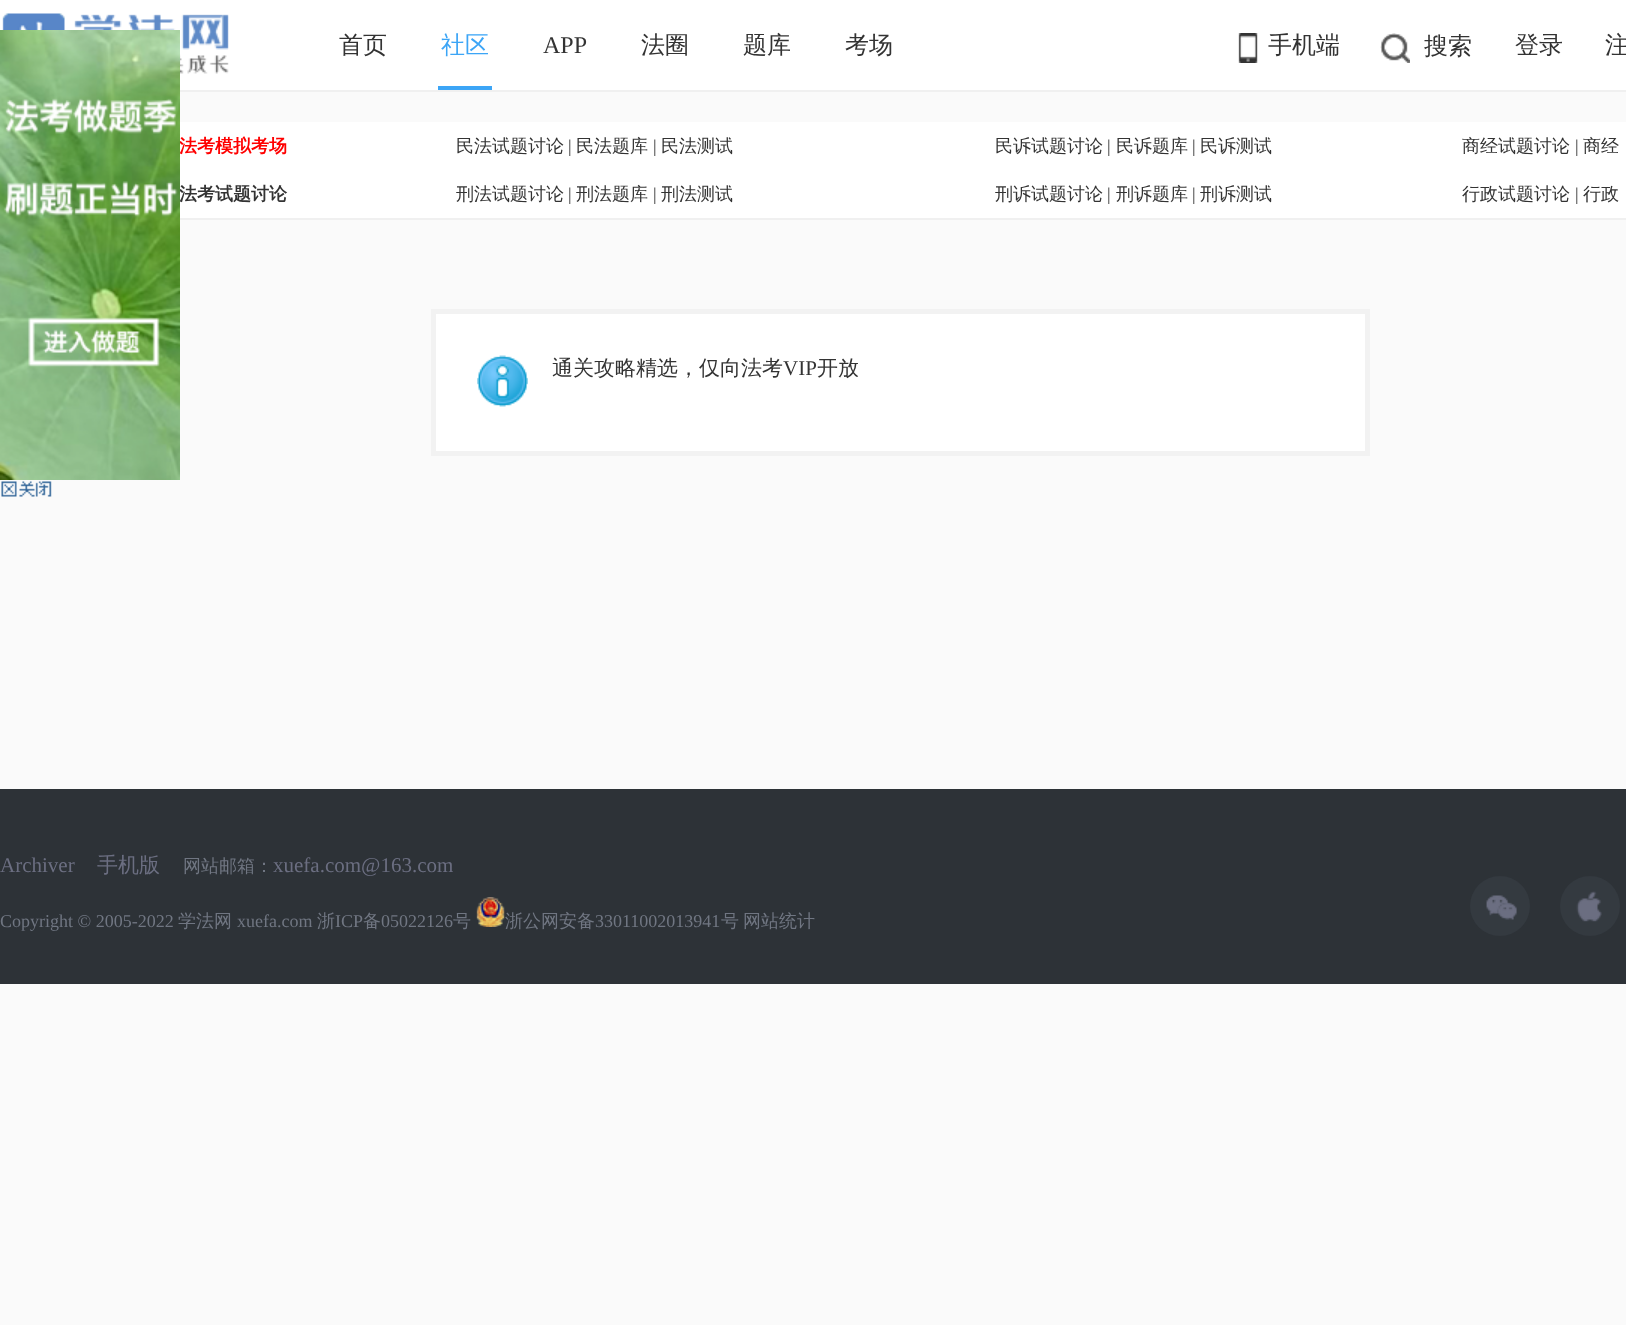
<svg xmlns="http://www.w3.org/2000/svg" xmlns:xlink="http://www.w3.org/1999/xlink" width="1626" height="1325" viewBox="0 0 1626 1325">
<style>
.cls-1{font:500 24px WenQuanYi Zen Hei;fill:#333333}
.cls-2{font:500 24px WenQuanYi Zen Hei;fill:#3ca5f6}
.cls-3{font:24px Liberation Serif;fill:#333333}
.cls-4{font:bold 18px WenQuanYi Zen Hei;fill:#ff0000}
.cls-5{font:500 18px WenQuanYi Zen Hei;fill:#333333}
.cls-6{font:18px Liberation Serif;fill:#333333}
.cls-7{font:bold 18px WenQuanYi Zen Hei;fill:#333333}
.cls-8{font:500 21px WenQuanYi Zen Hei;fill:#333333}
.cls-9{font:21px Liberation Serif;fill:#333333}
.cls-10{font:21px Liberation Serif;fill:#6b6e81}
.cls-11{font:500 21px WenQuanYi Zen Hei;fill:#6b6e81}
.cls-12{font:500 18px WenQuanYi Zen Hei;fill:#707682}
.cls-13{font:18px Liberation Serif;fill:#707682}
</style>
<rect width="100%" height="100%" fill="#fafafa"/>
<image xlink:href="image1.png" x="1" y="481" width="51" height="16"/>
<rect fill="#ffffff" x="0" y="0" width="1626" height="90"/>
<rect fill="#f0f0f0" x="180" y="90" width="1446" height="2"/>
<image xlink:href="image2.png" x="2" y="13" width="227" height="61"/>
<rect fill="#3ca5f6" x="438" y="86" width="54" height="4"/>
<image xlink:href="image3.png" x="1238" y="33" width="20" height="30"/>
<image xlink:href="image4.png" x="1380" y="33" width="30" height="30"/>
<rect fill="#f0f0f0" x="180" y="218" width="1446" height="2"/>
<rect fill="#ffffff" x="180" y="122" width="1446" height="96"/>
<rect fill="#ffffff" stroke="#f2f2f2" stroke-width="5" x="433.5" y="311.5" width="934" height="142"/>
<image xlink:href="image5.png" x="477" y="355" width="51" height="52"/>
<rect fill="#2d3237" x="0" y="789" width="1626" height="195"/>
<image xlink:href="image6.png" x="476" y="897" width="29" height="30"/>
<circle fill="#343a40" cx="1500" cy="906" r="30"/>
<image xlink:href="image7.png" x="1486" y="895" width="31" height="25"/>
<circle fill="#343a40" cx="1590" cy="906" r="30"/>
<image xlink:href="image8.png" x="1576" y="891" width="26" height="31"/>
<text class="cls-1" x="339" y="53">首页</text>
<text class="cls-2" x="441" y="53">社区</text>
<text class="cls-3" x="543" y="53">APP</text>
<text class="cls-1" x="641" y="53">法圈</text>
<text class="cls-1" x="743" y="53">题库</text>
<text class="cls-1" x="845" y="53">考场</text>
<text class="cls-1" x="1268" y="53">手机端</text>
<text class="cls-1" x="1424" y="54">搜索</text>
<text class="cls-1" x="1515" y="53">登录</text>
<text class="cls-1" x="1605" y="53">注</text>
<text class="cls-4" x="179" y="152">法考模拟考场</text>
<text class="cls-5" x="456" y="152">民法试题讨论</text>
<text class="cls-6" x="568" y="152">|</text>
<text class="cls-5" x="576" y="152">民法题库</text>
<text class="cls-6" x="653" y="152">|</text>
<text class="cls-5" x="661" y="152">民法测试</text>
<text class="cls-5" x="995" y="152">民诉试题讨论</text>
<text class="cls-6" x="1107" y="152">|</text>
<text class="cls-5" x="1116" y="152">民诉题库</text>
<text class="cls-6" x="1192" y="152">|</text>
<text class="cls-5" x="1200" y="152">民诉测试</text>
<text class="cls-5" x="1462" y="152">商经试题讨论</text>
<text class="cls-6" x="1575" y="152">|</text>
<text class="cls-5" x="1583" y="152">商经</text>
<text class="cls-7" x="179" y="200">法考试题讨论</text>
<image xlink:href="image0.png" x="0" y="30" width="180" height="450"/>
<text class="cls-5" x="456" y="200">刑法试题讨论</text>
<text class="cls-6" x="568" y="200">|</text>
<text class="cls-5" x="576" y="200">刑法题库</text>
<text class="cls-6" x="653" y="200">|</text>
<text class="cls-5" x="661" y="200">刑法测试</text>
<text class="cls-5" x="995" y="200">刑诉试题讨论</text>
<text class="cls-6" x="1107" y="200">|</text>
<text class="cls-5" x="1116" y="200">刑诉题库</text>
<text class="cls-6" x="1192" y="200">|</text>
<text class="cls-5" x="1200" y="200">刑诉测试</text>
<text class="cls-5" x="1462" y="200">行政试题讨论</text>
<text class="cls-6" x="1575" y="200">|</text>
<text class="cls-5" x="1583" y="200">行政</text>
<text class="cls-8" x="552" y="375">通关攻略精选，仅向法考</text>
<text class="cls-9" x="783" y="375">VIP</text>
<text class="cls-8" x="817" y="375">开放</text>
<text class="cls-10" x="0" y="872">Archiver</text>
<text class="cls-11" x="97" y="872">手机版</text>
<text class="cls-12" x="183" y="872">网站邮箱：</text>
<text class="cls-10" x="273" y="872">xuefa.com@163.com</text>
<text class="cls-13" x="0" y="927">Copyright © 2005-2022</text>
<text class="cls-12" x="178" y="927">学法网</text>
<text class="cls-13" x="237" y="927">xuefa.com</text>
<text class="cls-12" x="317" y="927">浙</text>
<text class="cls-13" x="335" y="927">ICP</text>
<text class="cls-12" x="363" y="927">备</text>
<text class="cls-13" x="381" y="927">05022126</text>
<text class="cls-12" x="453" y="927">号</text>
<text class="cls-12" x="505" y="927">浙公网安备</text>
<text class="cls-13" x="595" y="927">33011002013941</text>
<text class="cls-12" x="721" y="927">号</text>
<text class="cls-12" x="743" y="927">网站统计</text>
</svg>
